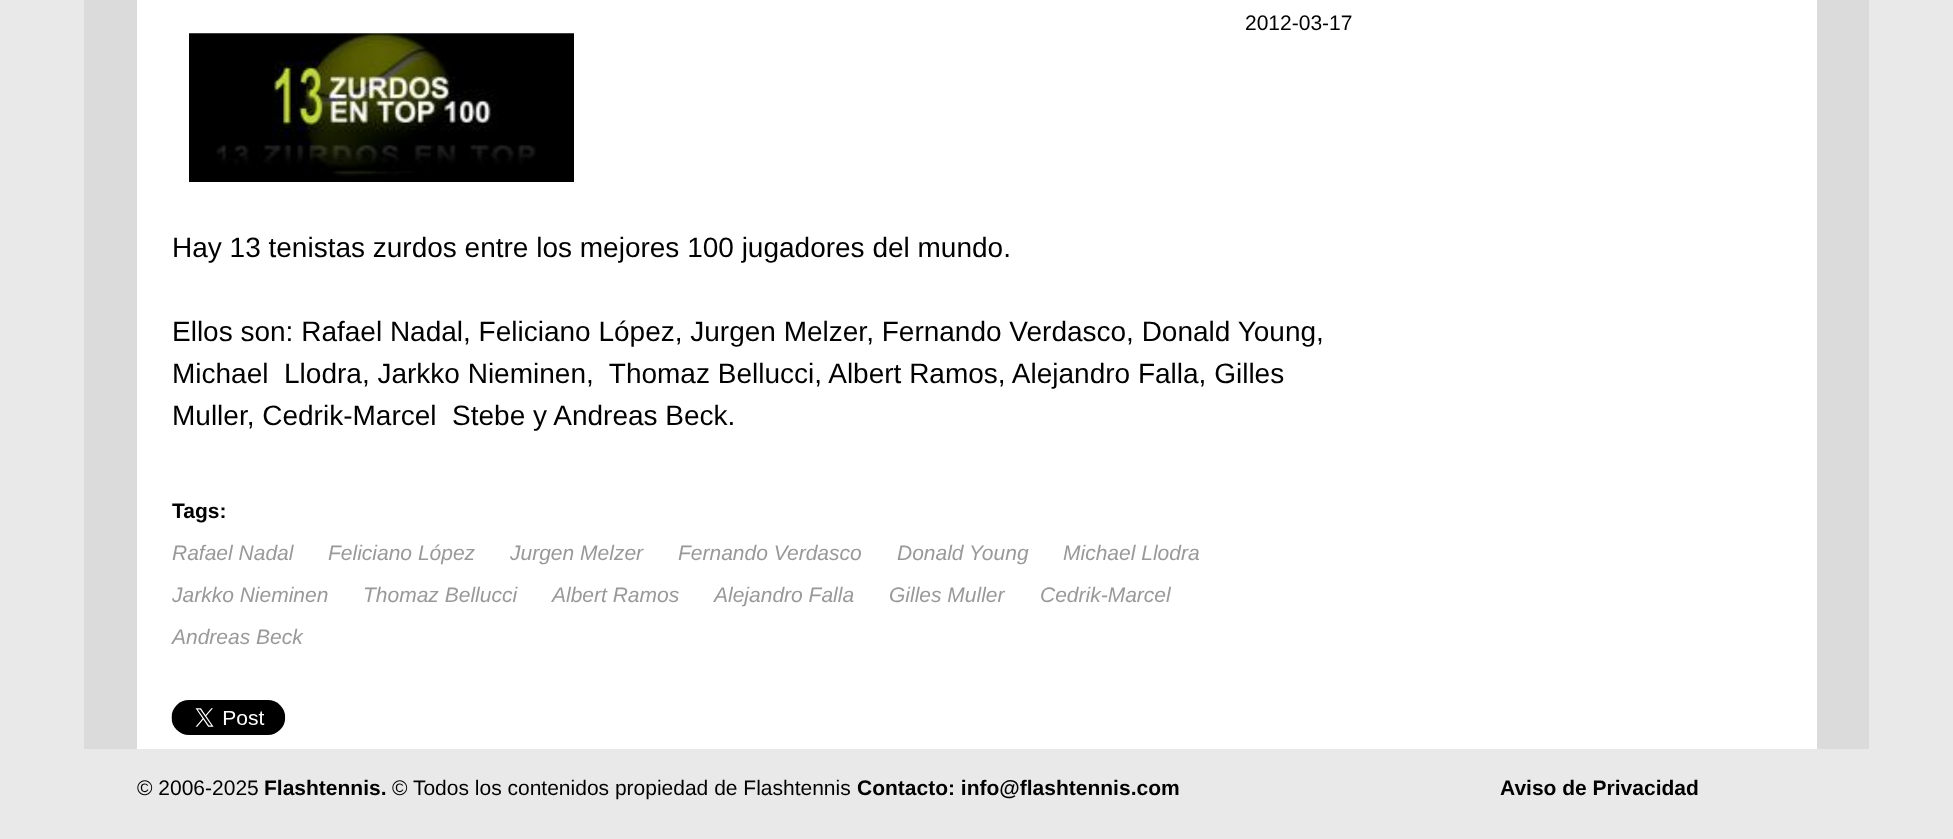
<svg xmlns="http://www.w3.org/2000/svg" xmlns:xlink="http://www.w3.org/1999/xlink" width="1953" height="839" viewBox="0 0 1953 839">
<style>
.cls-1{font:21px Liberation Sans;fill:#000000}
.cls-2{font:28px Liberation Sans;fill:#000000}
.cls-3{font:bold 21px Liberation Sans;fill:#000000}
.cls-4{font:italic 21px Liberation Sans;fill:#999999}
</style>
<rect width="100%" height="100%" fill="#e9e9e9"/>
<rect fill="#ffffff" x="137" y="0" width="1680" height="749"/>
<rect fill="#dcdbdb" x="1817" y="0" width="52" height="749"/>
<rect fill="#dcdbdb" x="84" y="0" width="53" height="749"/>
<image xlink:href="image0.png" x="189" y="33" width="385" height="149"/>
<image xlink:href="image1.png" x="171" y="700" width="115" height="35"/>
<text class="cls-1" x="1245" y="30">2012-03-17</text>
<text class="cls-2" x="172" y="257">Hay 13 tenistas zurdos entre los mejores 100 jugadores del mundo.</text>
<text class="cls-2" xml:space="preserve"><tspan x="172" y="341">Ellos son: Rafael Nadal, Feliciano López, Jurgen Melzer, Fernando Verdasco, Donald Young,</tspan><tspan x="172" y="383">Michael  Llodra, Jarkko Nieminen,  Thomaz Bellucci, Albert Ramos, Alejandro Falla, Gilles</tspan><tspan x="172" y="425">Muller, Cedrik-Marcel  Stebe y Andreas Beck.</tspan></text>
<text class="cls-3" x="172" y="518">Tags:</text>
<text class="cls-4" x="172" y="560">Rafael Nadal</text>
<text class="cls-4" x="328" y="560">Feliciano López</text>
<text class="cls-4" x="510" y="560">Jurgen Melzer</text>
<text class="cls-4" x="678" y="560">Fernando Verdasco</text>
<text class="cls-4" x="897" y="560">Donald Young</text>
<text class="cls-4" x="1063" y="560">Michael Llodra</text>
<text class="cls-4" x="172" y="602">Jarkko Nieminen</text>
<text class="cls-4" x="363" y="602">Thomaz Bellucci</text>
<text class="cls-4" x="552" y="602">Albert Ramos</text>
<text class="cls-4" x="714" y="602">Alejandro Falla</text>
<text class="cls-4" x="889" y="602">Gilles Muller</text>
<text class="cls-4" x="1040" y="602">Cedrik-Marcel</text>
<text class="cls-4" x="172" y="644">Andreas Beck</text>
<text class="cls-1" x="137" y="795">© 2006-2025</text>
<text class="cls-3" x="264" y="795">Flashtennis.</text>
<text class="cls-1" x="392" y="795">© Todos los contenidos propiedad de Flashtennis</text>
<text class="cls-3" x="857" y="795">Contacto: info@flashtennis.com</text>
<text class="cls-3" x="1500" y="795">Aviso de Privacidad</text>
</svg>
